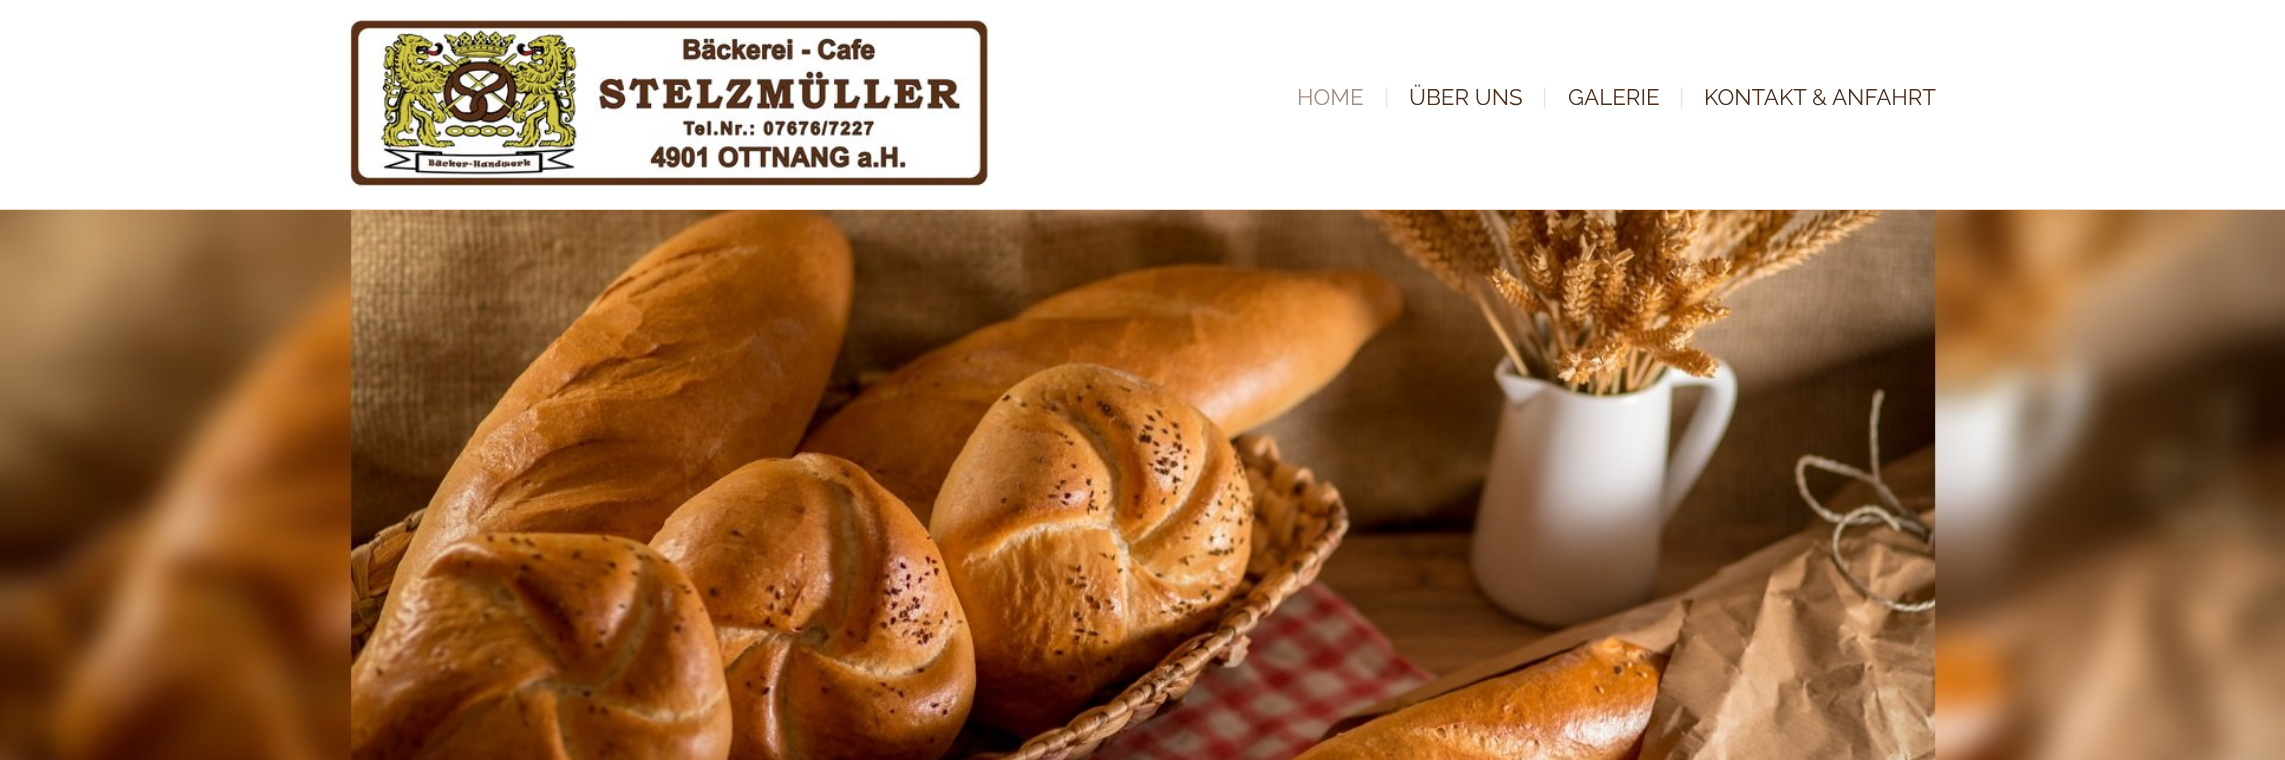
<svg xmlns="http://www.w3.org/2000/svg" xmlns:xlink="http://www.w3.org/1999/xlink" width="2285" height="760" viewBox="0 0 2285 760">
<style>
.cls-1{font:100 22.4px Raleway;fill:#a49081}
.cls-2{font:100 22.4px Raleway;fill:#e4e4e4}
.cls-3{font:100 22.4px Raleway;fill:#4b301e}
</style>
<rect width="100%" height="100%" fill="#f1d7c5"/>
<rect fill="#ffffff" x="0" y="0" width="2285" height="209"/>
<image xlink:href="image0.png" x="348" y="20" width="641" height="168"/>
<image xlink:href="image1.png" x="0" y="210" width="2285" height="550"/>
<text class="cls-1" x="1297" y="105">HOME</text>
<text class="cls-2" x="1384" y="105">|</text>
<text class="cls-3" x="1409" y="105">ÜBER UNS</text>
<text class="cls-2" x="1542" y="105">|</text>
<text class="cls-3" x="1568" y="105">GALERIE</text>
<text class="cls-2" x="1679" y="105">|</text>
<text class="cls-3" x="1704" y="105">KONTAKT &amp; ANFAHRT</text>
</svg>
